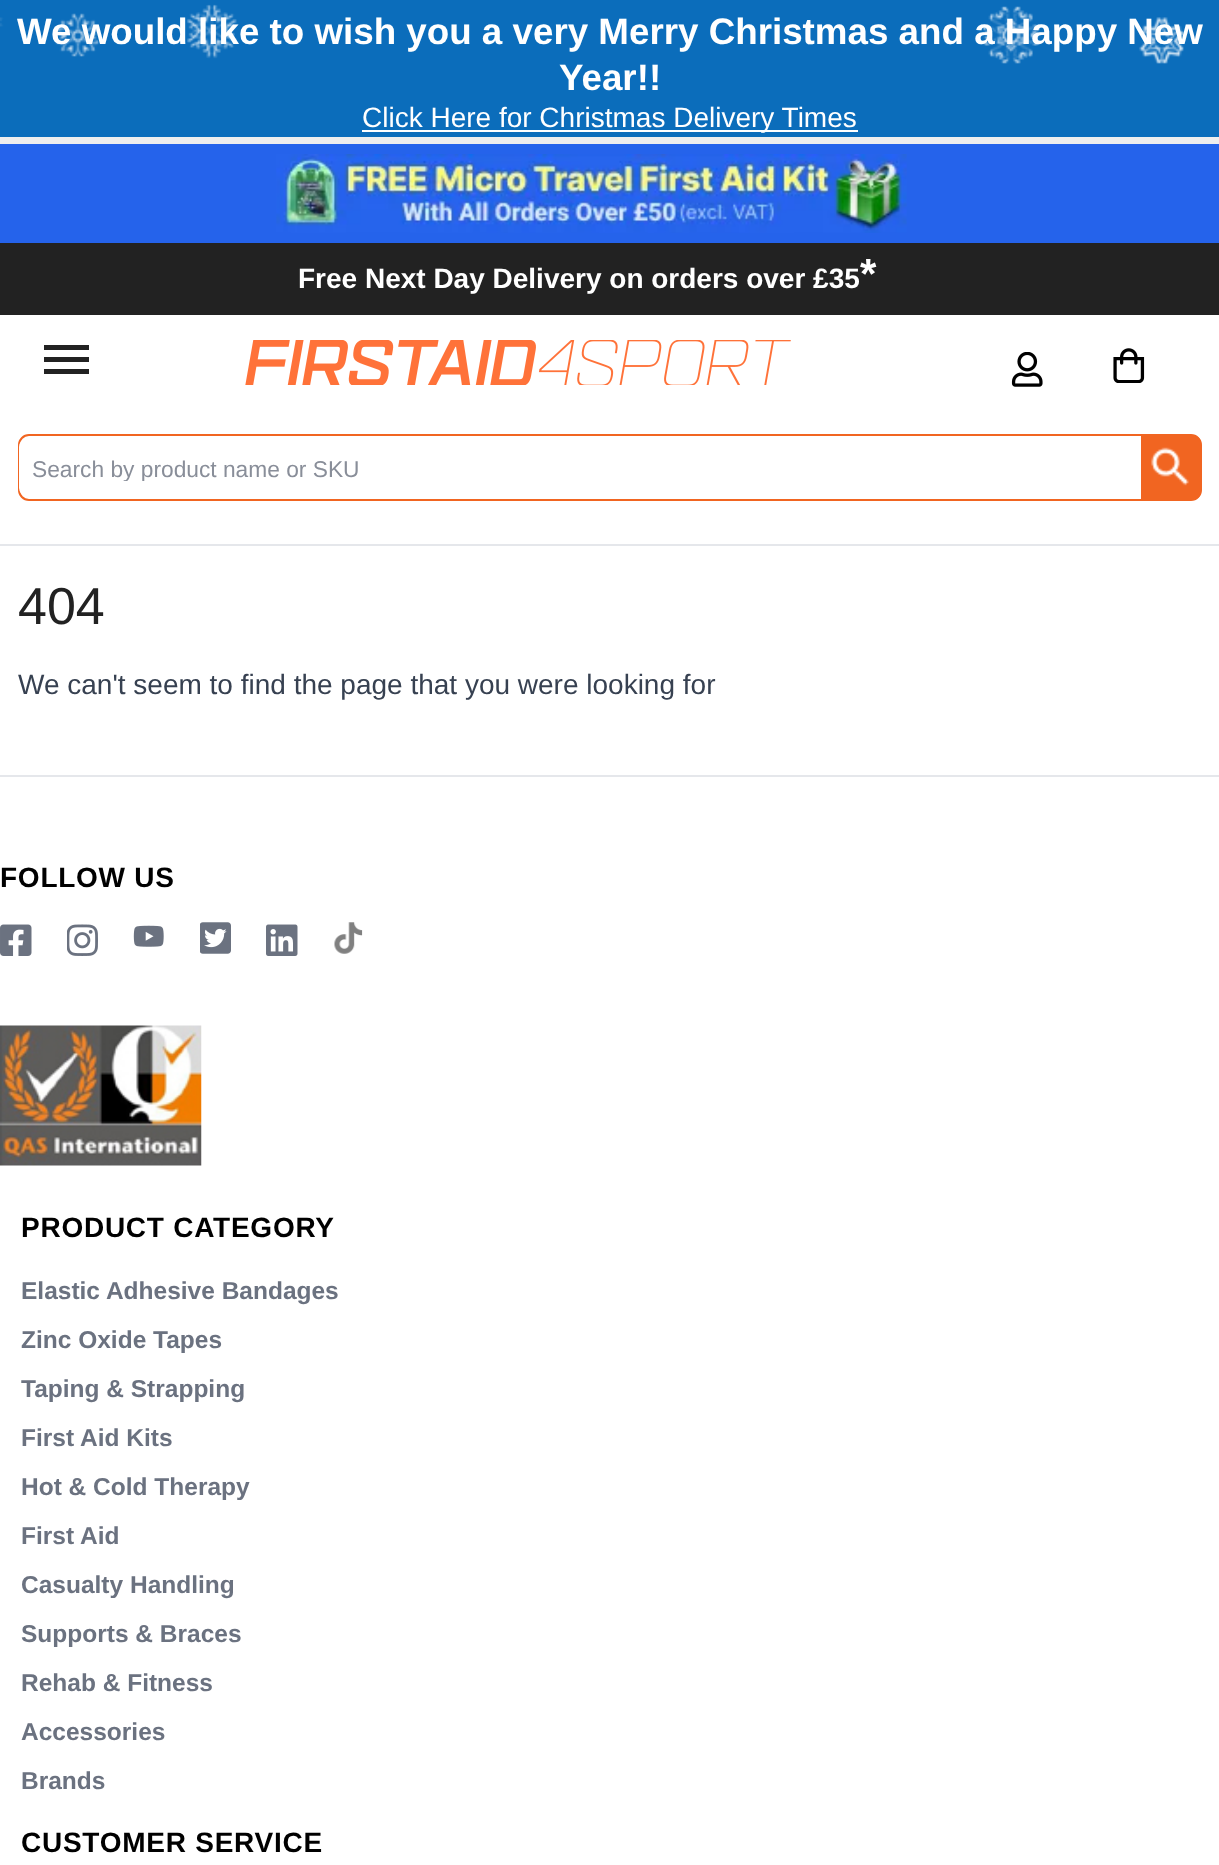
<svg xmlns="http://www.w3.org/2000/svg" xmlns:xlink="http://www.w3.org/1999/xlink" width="1219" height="1865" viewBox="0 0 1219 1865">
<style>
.cls-1{font:bold 36.75px Liberation Sans;fill:#ffffff}
.cls-2{font:28px Liberation Sans;fill:#ffffff}
.cls-3{font:bold 28px Liberation Sans;fill:#ffffff}
.cls-4{font:bold 42px Liberation Sans;fill:#ffffff}
.cls-5{font:22.75px Liberation Sans;fill:#898e99}
.cls-6{font:52px Liberation Sans;fill:#222222}
.cls-7{font:28px Liberation Sans;fill:#374151}
.cls-8{font:bold 28px Liberation Sans;letter-spacing:0.75px;fill:#000000}
.cls-9{font:bold 24.5px Liberation Sans;fill:#6b7280}
</style>
<defs>
<clipPath id="clip1"><rect x="32" y="455" width="1106" height="26"/></clipPath>
</defs>
<rect width="100%" height="100%" fill="#ffffff"/>
<rect fill="#e5e7eb" x="0" y="544" width="1219" height="2"/>
<rect fill="#eeeeee" x="0" y="137" width="1219" height="7"/>
<rect fill="#0b6dbb" x="0" y="0" width="1219" height="137"/>
<image xlink:href="image0.png" x="0" y="4" width="1184" height="60"/>
<rect fill="#ffffff" x="362" y="130" width="496" height="2"/>
<rect fill="#222222" x="0" y="243" width="1219" height="72"/>
<rect fill="#2563eb" x="0" y="144" width="1219" height="99"/>
<image xlink:href="image1.png" x="276" y="154" width="631" height="79"/>
<rect fill="#222222" x="44" y="345" width="45" height="5"/>
<rect fill="#222222" x="44" y="357" width="45" height="5"/>
<rect fill="#222222" x="44" y="369" width="45" height="5"/>
<image xlink:href="image2.png" x="245" y="340" width="546" height="45"/>
<image xlink:href="image3.png" x="1011" y="352" width="32" height="35"/>
<image xlink:href="image4.png" x="1113" y="348" width="32" height="35"/>
<rect fill="none" stroke="#f16521" stroke-width="2" x="19" y="435" width="1182" height="65" rx="10"/>
<rect fill="#ffffff" x="19" y="438" width="1122" height="59" rx="9"/>
<path fill="#f16521" d="M1141 436H1194C1198 436 1201 439 1201 443V492C1201 496 1198 499 1194 499H1141Z"/>
<image xlink:href="image5.png" x="1151" y="447" width="38" height="39"/>
<rect fill="#e5e7eb" x="0" y="775" width="1219" height="2"/>
<image xlink:href="image6.png" x="0" y="924" width="32" height="32"/>
<image xlink:href="image7.png" x="67" y="924" width="31" height="32"/>
<image xlink:href="image8.png" x="133" y="925" width="31" height="22"/>
<image xlink:href="image9.png" x="200" y="922" width="31" height="32"/>
<image xlink:href="image10.png" x="266" y="924" width="32" height="32"/>
<image xlink:href="image11.png" x="334" y="922" width="29" height="32"/>
<image xlink:href="image12.png" x="0" y="1025" width="202" height="141"/>
<text class="cls-1" x="17" y="44">We would like to wish you a very Merry Christmas and a Happy New</text>
<text class="cls-1" x="559" y="90">Year!!</text>
<text class="cls-2" x="362" y="127">Click Here for Christmas Delivery Times</text>
<text class="cls-3" x="298" y="288">Free Next Day Delivery on orders over £35</text>
<text class="cls-4" x="860" y="288">*</text>
<g clip-path="url(#clip1)">
<text class="cls-5" x="32" y="477">Search by product name or SKU</text>
</g>
<text class="cls-6" x="18" y="624">404</text>
<text class="cls-7" x="18" y="694">We can't seem to find the page that you were looking for</text>
<text class="cls-8" x="0" y="887">FOLLOW US</text>
<text class="cls-8" x="21" y="1237">PRODUCT CATEGORY</text>
<text class="cls-9" x="21" y="1299">Elastic Adhesive Bandages</text>
<text class="cls-9" x="21" y="1348">Zinc Oxide Tapes</text>
<text class="cls-9" x="21" y="1397">Taping &amp; Strapping</text>
<text class="cls-9" x="21" y="1446">First Aid Kits</text>
<text class="cls-9" x="21" y="1495">Hot &amp; Cold Therapy</text>
<text class="cls-9" x="21" y="1544">First Aid</text>
<text class="cls-9" x="21" y="1593">Casualty Handling</text>
<text class="cls-9" x="21" y="1642">Supports &amp; Braces</text>
<text class="cls-9" x="21" y="1691">Rehab &amp; Fitness</text>
<text class="cls-9" x="21" y="1740">Accessories</text>
<text class="cls-9" x="21" y="1789">Brands</text>
<text class="cls-8" x="21" y="1852">CUSTOMER SERVICE</text>
</svg>
